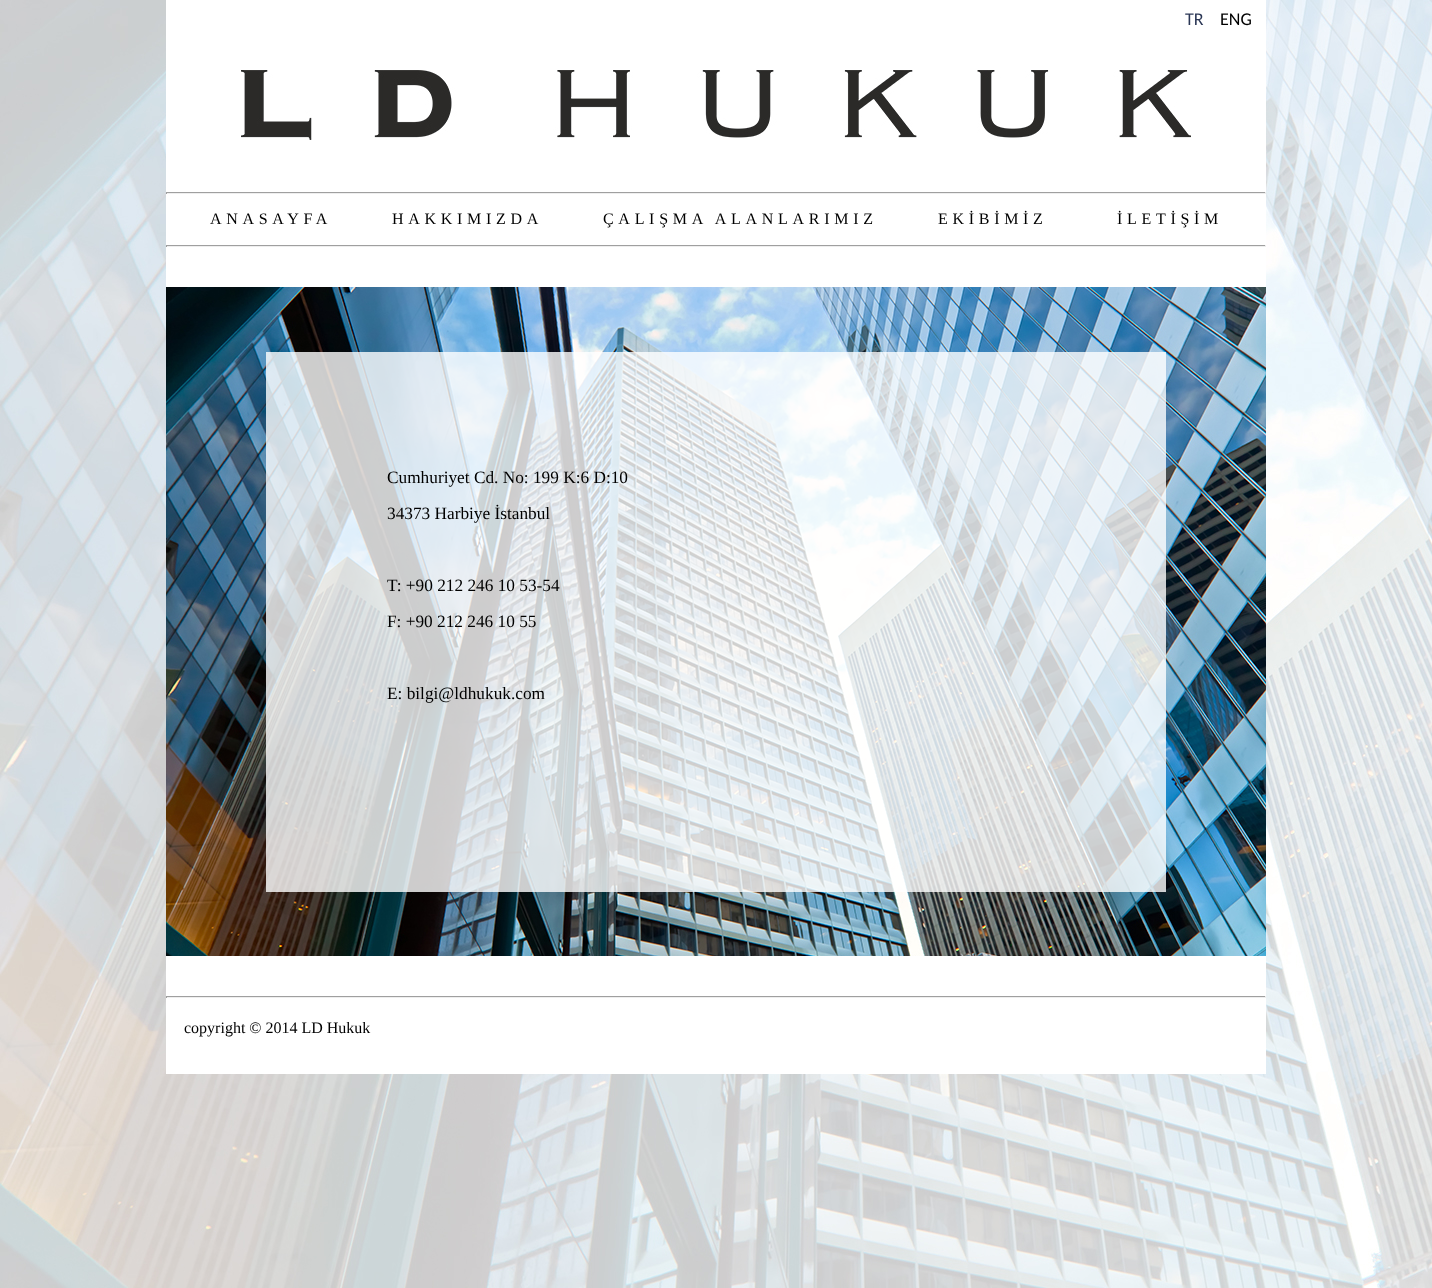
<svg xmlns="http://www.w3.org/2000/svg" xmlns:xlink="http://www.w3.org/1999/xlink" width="1432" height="1288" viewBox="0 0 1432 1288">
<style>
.cls-1{font:18px Carlito;fill:#2b3755}
.cls-2{font:18px Carlito;fill:#000000}
.cls-3{font:16px Liberation Serif;letter-spacing:4.7px;fill:#000000}
.cls-4{font:17.3px Liberation Serif;fill:#000000}
.cls-5{font:16px Liberation Serif;fill:#000000}
</style>
<rect width="100%" height="100%" fill="#ffffff"/>
<image xlink:href="image0.png" x="0" y="0" width="1432" height="1288"/>
<rect fill="#ffffff" x="166" y="0" width="1100" height="1074"/>
<image xlink:href="image1.png" x="241" y="70" width="950" height="70"/>
<rect fill="#9f9f9f" x="166" y="192" width="1100" height="1"/>
<rect fill="#eeeeee" x="1265" y="192" width="1" height="2"/>
<rect fill="#eeeeee" x="166" y="193" width="1100" height="1"/>
<rect fill="#9f9f9f" x="166" y="192" width="1" height="2"/>
<rect fill="#9f9f9f" x="166" y="245" width="1100" height="1"/>
<rect fill="#eeeeee" x="1265" y="245" width="1" height="2"/>
<rect fill="#eeeeee" x="166" y="246" width="1100" height="1"/>
<rect fill="#9f9f9f" x="166" y="245" width="1" height="2"/>
<image xlink:href="image2.png" x="166" y="287" width="1100" height="669"/>
<rect fill="#ffffff" fill-opacity="0.8" x="266" y="352" width="900" height="540"/>
<rect fill="#9f9f9f" x="166" y="996" width="1100" height="1"/>
<rect fill="#eeeeee" x="1265" y="996" width="1" height="2"/>
<rect fill="#eeeeee" x="166" y="997" width="1100" height="1"/>
<rect fill="#9f9f9f" x="166" y="996" width="1" height="2"/>
<text class="cls-1" x="1185" y="25">TR</text>
<text class="cls-2" x="1220" y="25">ENG</text>
<text class="cls-3" x="210" y="224">ANASAYFA</text>
<text class="cls-3" x="392" y="224">HAKKIMIZDA</text>
<text class="cls-3" x="603" y="224">ÇALIŞMA ALANLARIMIZ</text>
<text class="cls-3" x="938" y="224">EKİBİMİZ</text>
<text class="cls-3" x="1117" y="224">İLETİŞİM</text>
<text class="cls-4" x="387" y="483">Cumhuriyet Cd. No: 199 K:6 D:10</text>
<text class="cls-4" x="387" y="519">34373 Harbiye İstanbul</text>
<text class="cls-4" x="387" y="591">T: +90 212 246 10 53-54</text>
<text class="cls-4" x="387" y="627">F: +90 212 246 10 55</text>
<text class="cls-4" x="387" y="699">E: bilgi@ldhukuk.com</text>
<text class="cls-5" x="184" y="1033">copyright © 2014 LD Hukuk</text>
</svg>
